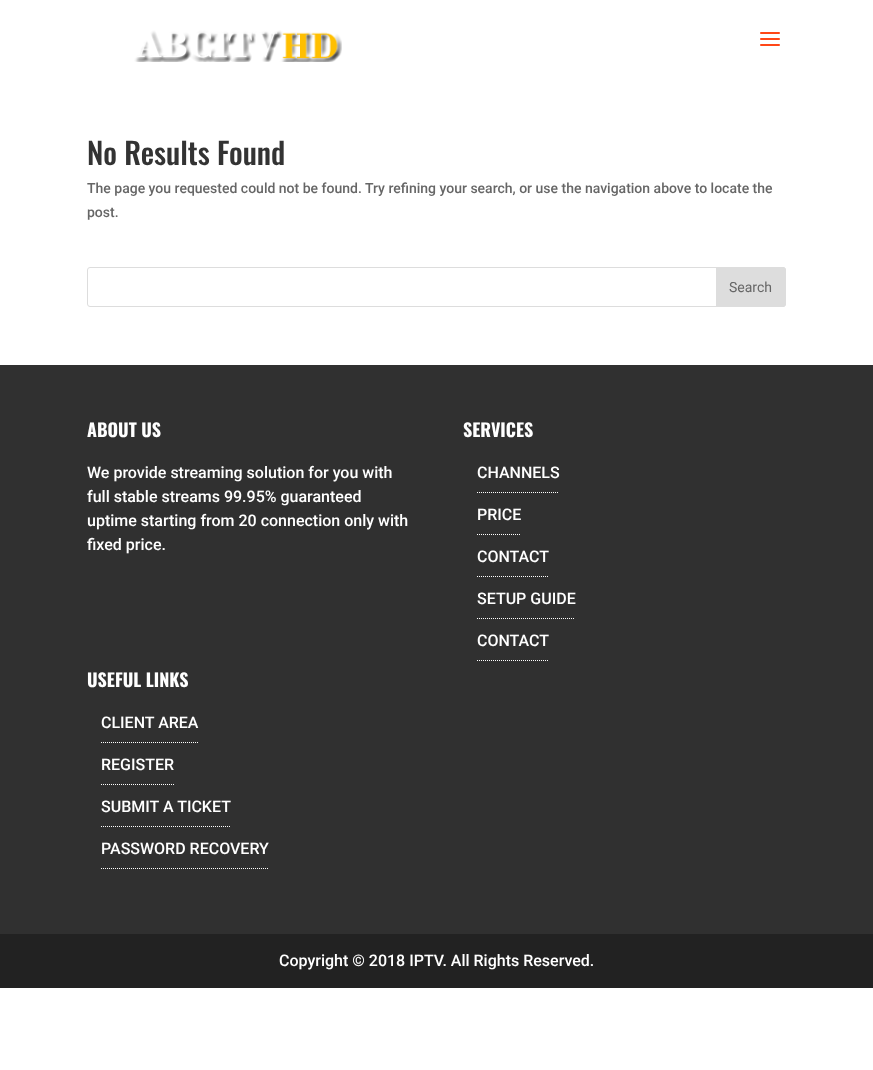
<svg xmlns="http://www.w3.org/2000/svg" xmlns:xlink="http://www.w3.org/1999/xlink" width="873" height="1070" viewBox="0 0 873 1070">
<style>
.cls-1{font:500 30px Oswald;fill:#333333}
.cls-2{font:500 14px Roboto;fill:#666666}
.cls-3{font:14px Roboto;fill:#666666}
.cls-4{font:bold 18px Oswald;fill:#ffffff}
.cls-5{font:500 16px Roboto;fill:#ffffff}
</style>
<rect width="100%" height="100%" fill="#ffffff"/>
<image xlink:href="image0.png" x="134" y="30" width="208" height="32"/>
<image xlink:href="image1.png" x="760" y="32" width="20" height="14"/>
<rect fill="none" stroke="#dddddd" x="87.5" y="267.5" width="698" height="39" rx="2.5"/>
<path fill="#dddddd" stroke="#dddddd" d="M716.5 267.5H783C784.5 267.5 785.5 268.5 785.5 270V304C785.5 305.5 784.5 306.5 783 306.5H716.5Z"/>
<rect fill="#303030" x="0" y="365" width="873" height="569"/>
<path fill="none" stroke="#ffffff" stroke-dasharray="1 1" d="M477 492.5H559"/>
<path fill="none" stroke="#ffffff" stroke-dasharray="1 1" d="M477 534.5H521"/>
<path fill="none" stroke="#ffffff" stroke-dasharray="1 1" d="M477 576.5H549"/>
<path fill="none" stroke="#ffffff" stroke-dasharray="1 1" d="M477 618.5H575"/>
<path fill="none" stroke="#ffffff" stroke-dasharray="1 1" d="M477 660.5H549"/>
<path fill="none" stroke="#ffffff" stroke-dasharray="1 1" d="M101 742.5H199"/>
<path fill="none" stroke="#ffffff" stroke-dasharray="1 1" d="M101 784.5H174"/>
<path fill="none" stroke="#ffffff" stroke-dasharray="1 1" d="M101 826.5H231"/>
<path fill="none" stroke="#ffffff" stroke-dasharray="1 1" d="M101 868.5H269"/>
<rect fill="#222222" x="0" y="934" width="873" height="54"/>
<text class="cls-1" x="87" y="165">No Results Found</text>
<text class="cls-2"><tspan x="87" y="193">The page you requested could not be found. Try refining your search, or use the navigation above to locate the</tspan><tspan x="87" y="217">post.</tspan></text>
<text class="cls-3" x="729" y="292">Search</text>
<text class="cls-4" x="87" y="437">ABOUT US</text>
<text class="cls-5"><tspan x="87" y="478">We provide streaming solution for you with</tspan><tspan x="87" y="502">full stable streams 99.95% guaranteed</tspan><tspan x="87" y="526">uptime starting from 20 connection only with</tspan><tspan x="87" y="550">fixed price.</tspan></text>
<text class="cls-4" x="463" y="437">SERVICES</text>
<text class="cls-5" x="477" y="478">CHANNELS</text>
<text class="cls-5" x="477" y="520">PRICE</text>
<text class="cls-5" x="477" y="562">CONTACT</text>
<text class="cls-5" x="477" y="604">SETUP GUIDE</text>
<text class="cls-5" x="477" y="646">CONTACT</text>
<text class="cls-4" x="87" y="687">USEFUL LINKS</text>
<text class="cls-5" x="101" y="728">CLIENT AREA</text>
<text class="cls-5" x="101" y="770">REGISTER</text>
<text class="cls-5" x="101" y="812">SUBMIT A TICKET</text>
<text class="cls-5" x="101" y="854">PASSWORD RECOVERY</text>
<text class="cls-5" x="279" y="966">Copyright © 2018 IPTV. All Rights Reserved.</text>
</svg>
